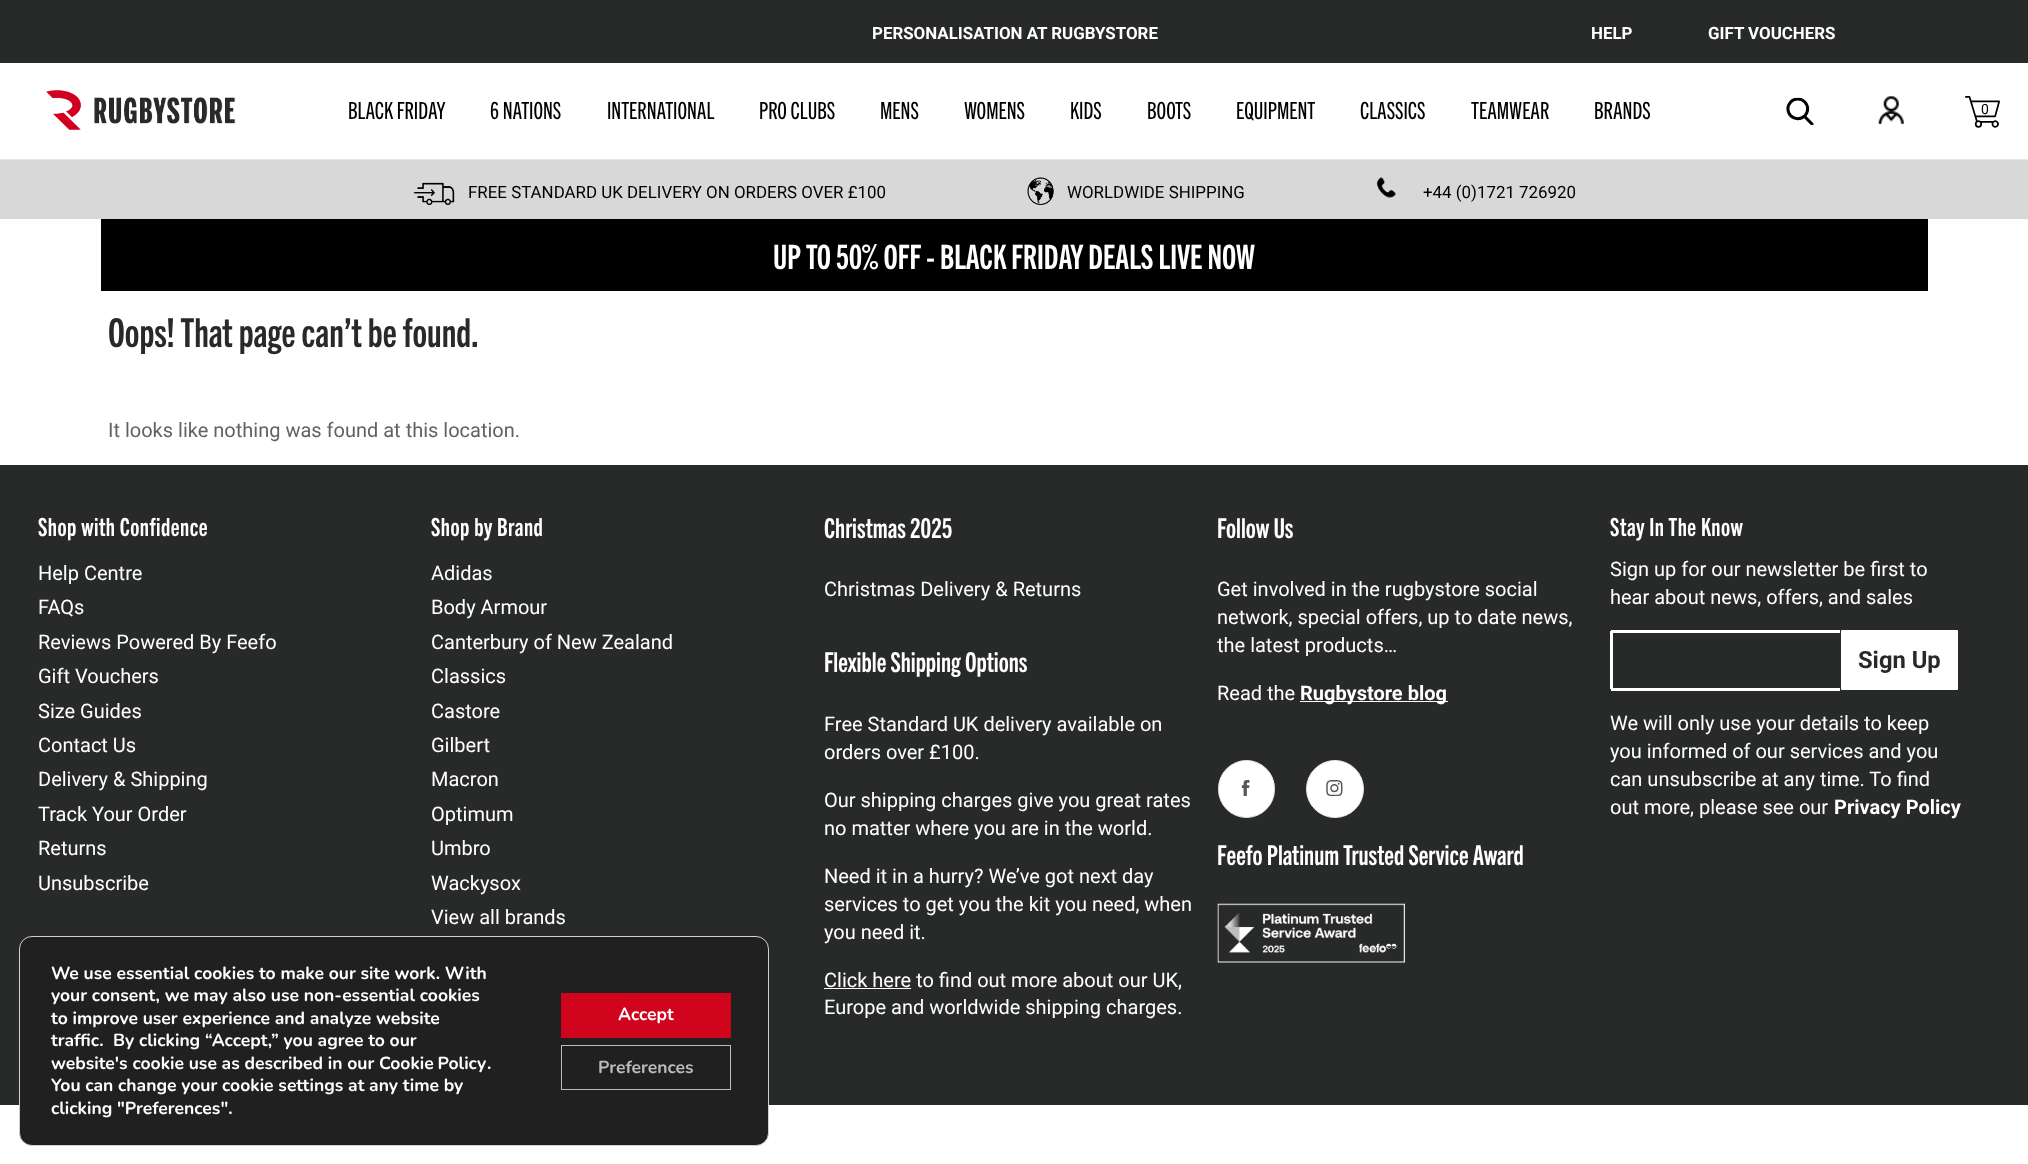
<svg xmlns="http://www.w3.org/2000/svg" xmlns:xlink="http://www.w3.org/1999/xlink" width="2028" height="1164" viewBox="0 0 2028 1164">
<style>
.cls-1{font:bold 16.9px Roboto;fill:#ffffff}
.cls-2{font:23.75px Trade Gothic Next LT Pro;fill:#000000}
.cls-3{font:14px Roboto;fill:#000000}
.cls-4{font:16.9px Roboto;fill:#000000}
.cls-5{font:bold 33.75px Trade Gothic Next LT Pro;fill:#ffffff}
.cls-6{font:bold 40px Trade Gothic Next LT Pro;fill:#282929}
.cls-7{font:20px Roboto;fill:#616265}
.cls-8{font:bold 25px Trade Gothic Next LT Pro;letter-spacing:0.5px;fill:#ffffff}
.cls-9{font:20px Roboto;fill:#ffffff}
.cls-10{font:bold 27.5px Trade Gothic Next LT Pro;fill:#ffffff}
.cls-11{font:bold 20px Roboto;fill:#ffffff}
.cls-12{font:bold 23.75px Roboto;fill:#282929}
.cls-13{font:bold 17.5px Nunito;fill:#ffffff}
.cls-14{font:bold 17.5px Nunito;fill:#bcbcbc}
</style>
<rect width="100%" height="100%" fill="#ffffff"/>
<rect fill="#282929" x="0" y="0" width="2028" height="63"/>
<rect fill="#e8e6e6" x="0" y="159" width="2028" height="1"/>
<image xlink:href="image0.png" x="46" y="90" width="190" height="40"/>
<image xlink:href="image1.png" x="1786" y="97" width="28" height="28"/>
<image xlink:href="image2.png" x="1878" y="96" width="26" height="28"/>
<image xlink:href="image3.png" x="1965" y="96" width="35" height="32"/>
<rect fill="#d8d8d8" x="0" y="160" width="2028" height="59"/>
<image xlink:href="image4.png" x="413" y="182" width="42" height="23"/>
<image xlink:href="image5.png" x="1027" y="177" width="27" height="28"/>
<image xlink:href="image6.png" x="1377" y="177" width="19" height="21"/>
<rect fill="#000000" x="101" y="219" width="1827" height="72"/>
<rect fill="#282929" x="0" y="465" width="2028" height="640"/>
<rect fill="#ffffff" x="824" y="988" width="87" height="1"/>
<rect fill="#ffffff" x="1300" y="701" width="148" height="1"/>
<rect fill="#ffffff" stroke="#e8e6e6" x="1218.5" y="760.5" width="56" height="57" rx="28"/>
<image xlink:href="image7.png" x="1241" y="780" width="9" height="16"/>
<circle fill="#ffffff" stroke="#e8e6e6" cx="1335" cy="789" r="28.5"/>
<image xlink:href="image8.png" x="1326" y="780" width="17" height="16"/>
<image xlink:href="image9.png" x="1217" y="903" width="188" height="60"/>
<rect fill="#ffffff" x="1611" y="630" width="229" height="3"/>
<rect fill="#ffffff" x="1611" y="688" width="229" height="3"/>
<rect fill="#ffffff" x="1610" y="631" width="3" height="58"/>
<rect fill="#ffffff" x="1841" y="630" width="117" height="60" rx="1"/>
<rect fill="#202020" stroke="#d3ced2" x="19.5" y="936.5" width="749" height="209" rx="12.5"/>
<rect fill="#d0041c" x="561" y="993" width="170" height="45"/>
<rect fill="none" stroke="#bcbcbc" x="561.5" y="1045.5" width="169" height="44"/>
<text class="cls-1" x="872" y="39">PERSONALISATION AT RUGBYSTORE</text>
<text class="cls-1" x="1591" y="39">HELP</text>
<text class="cls-1" x="1708" y="39">GIFT VOUCHERS</text>
<text class="cls-2" x="348" y="119">BLACK FRIDAY</text>
<text class="cls-2" x="490" y="119">6 NATIONS</text>
<text class="cls-2" x="607" y="119">INTERNATIONAL</text>
<text class="cls-2" x="759" y="119">PRO CLUBS</text>
<text class="cls-2" x="880" y="119">MENS</text>
<text class="cls-2" x="964" y="119">WOMENS</text>
<text class="cls-2" x="1070" y="119">KIDS</text>
<text class="cls-2" x="1147" y="119">BOOTS</text>
<text class="cls-2" x="1236" y="119">EQUIPMENT</text>
<text class="cls-2" x="1360" y="119">CLASSICS</text>
<text class="cls-2" x="1471" y="119">TEAMWEAR</text>
<text class="cls-2" x="1594" y="119">BRANDS</text>
<text class="cls-3" x="1981" y="114">0</text>
<text class="cls-4" x="468" y="198">FREE STANDARD UK DELIVERY ON ORDERS OVER £100</text>
<text class="cls-4" x="1067" y="198">WORLDWIDE SHIPPING</text>
<text class="cls-4" x="1423" y="198">+44 (0)1721 726920</text>
<text class="cls-5" x="773" y="269">UP TO 50% OFF - BLACK FRIDAY DEALS LIVE NOW</text>
<text class="cls-6" x="108" y="347">Oops! That page can’t be found.</text>
<text class="cls-7" x="108" y="437">It looks like nothing was found at this location.</text>
<text class="cls-8" x="38" y="536">Shop with Confidence</text>
<text class="cls-9"><tspan x="38" y="580">Help Centre</tspan><tspan x="38" y="614">FAQs</tspan><tspan x="38" y="649">Reviews Powered By Feefo</tspan><tspan x="38" y="683">Gift Vouchers</tspan><tspan x="38" y="718">Size Guides</tspan><tspan x="38" y="752">Contact Us</tspan><tspan x="38" y="786">Delivery &amp; Shipping</tspan><tspan x="38" y="821">Track Your Order</tspan><tspan x="38" y="855">Returns</tspan><tspan x="38" y="890">Unsubscribe</tspan></text>
<text class="cls-8" x="431" y="536">Shop by Brand</text>
<text class="cls-9"><tspan x="431" y="580">Adidas</tspan><tspan x="431" y="614">Body Armour</tspan><tspan x="431" y="649">Canterbury of New Zealand</tspan><tspan x="431" y="683">Classics</tspan><tspan x="431" y="718">Castore</tspan><tspan x="431" y="752">Gilbert</tspan><tspan x="431" y="786">Macron</tspan><tspan x="431" y="821">Optimum</tspan><tspan x="431" y="855">Umbro</tspan><tspan x="431" y="890">Wackysox</tspan><tspan x="431" y="924">View all brands</tspan></text>
<text class="cls-10" x="824" y="538">Christmas 2025</text>
<text class="cls-9" x="824" y="596">Christmas Delivery &amp; Returns</text>
<text class="cls-10" x="824" y="672">Flexible Shipping Options</text>
<text class="cls-9"><tspan x="824" y="731">Free Standard UK delivery available on</tspan><tspan x="824" y="759">orders over £100.</tspan></text>
<text class="cls-9"><tspan x="824" y="807">Our shipping charges give you great rates</tspan><tspan x="824" y="835">no matter where you are in the world.</tspan></text>
<text class="cls-9"><tspan x="824" y="883">Need it in a hurry? We’ve got next day</tspan><tspan x="824" y="911">services to get you the kit you need, when</tspan><tspan x="824" y="939">you need it.</tspan></text>
<text class="cls-9"><tspan x="824" y="987">Click here to find out more about our UK,</tspan><tspan x="824" y="1014">Europe and worldwide shipping charges.</tspan></text>
<text class="cls-10" x="1217" y="538">Follow Us</text>
<text class="cls-9"><tspan x="1217" y="596">Get involved in the rugbystore social</tspan><tspan x="1217" y="624">network, special offers, up to date news,</tspan><tspan x="1217" y="652">the latest products…</tspan></text>
<text class="cls-9" x="1217" y="700">Read the</text>
<text class="cls-11" x="1300" y="700">Rugbystore blog</text>
<text class="cls-10" x="1217" y="865">Feefo Platinum Trusted Service Award</text>
<text class="cls-8" x="1610" y="536">Stay In The Know</text>
<text class="cls-9"><tspan x="1610" y="576">Sign up for our newsletter be first to</tspan><tspan x="1610" y="604">hear about news, offers, and sales</tspan></text>
<text class="cls-12" x="1858" y="668">Sign Up</text>
<text class="cls-9"><tspan x="1610" y="730">We will only use your details to keep</tspan><tspan x="1610" y="758">you informed of our services and you</tspan><tspan x="1610" y="786">can unsubscribe at any time. To find</tspan><tspan x="1610" y="814">out more, please see our</tspan></text>
<text class="cls-11" x="1834" y="814">Privacy Policy</text>
<text class="cls-13" xml:space="preserve"><tspan x="51" y="979">We use essential cookies to make our site work. With</tspan><tspan x="51" y="1001">your consent, we may also use non-essential cookies</tspan><tspan x="51" y="1024">to improve user experience and analyze website</tspan><tspan x="51" y="1046">traffic.  By clicking “Accept,” you agree to our</tspan><tspan x="51" y="1069">website's cookie use as described in our</tspan></text>
<text class="cls-13" x="379" y="1069" word-spacing="-1">Cookie Policy</text>
<text class="cls-13" x="487" y="1069">.</text>
<text class="cls-13"><tspan x="51" y="1091">You can change your cookie settings at any time by</tspan><tspan x="51" y="1114">clicking "Preferences".</tspan></text>
<text class="cls-13" x="618" y="1020">Accept</text>
<text class="cls-14" x="598" y="1073">Preferences</text>
</svg>
